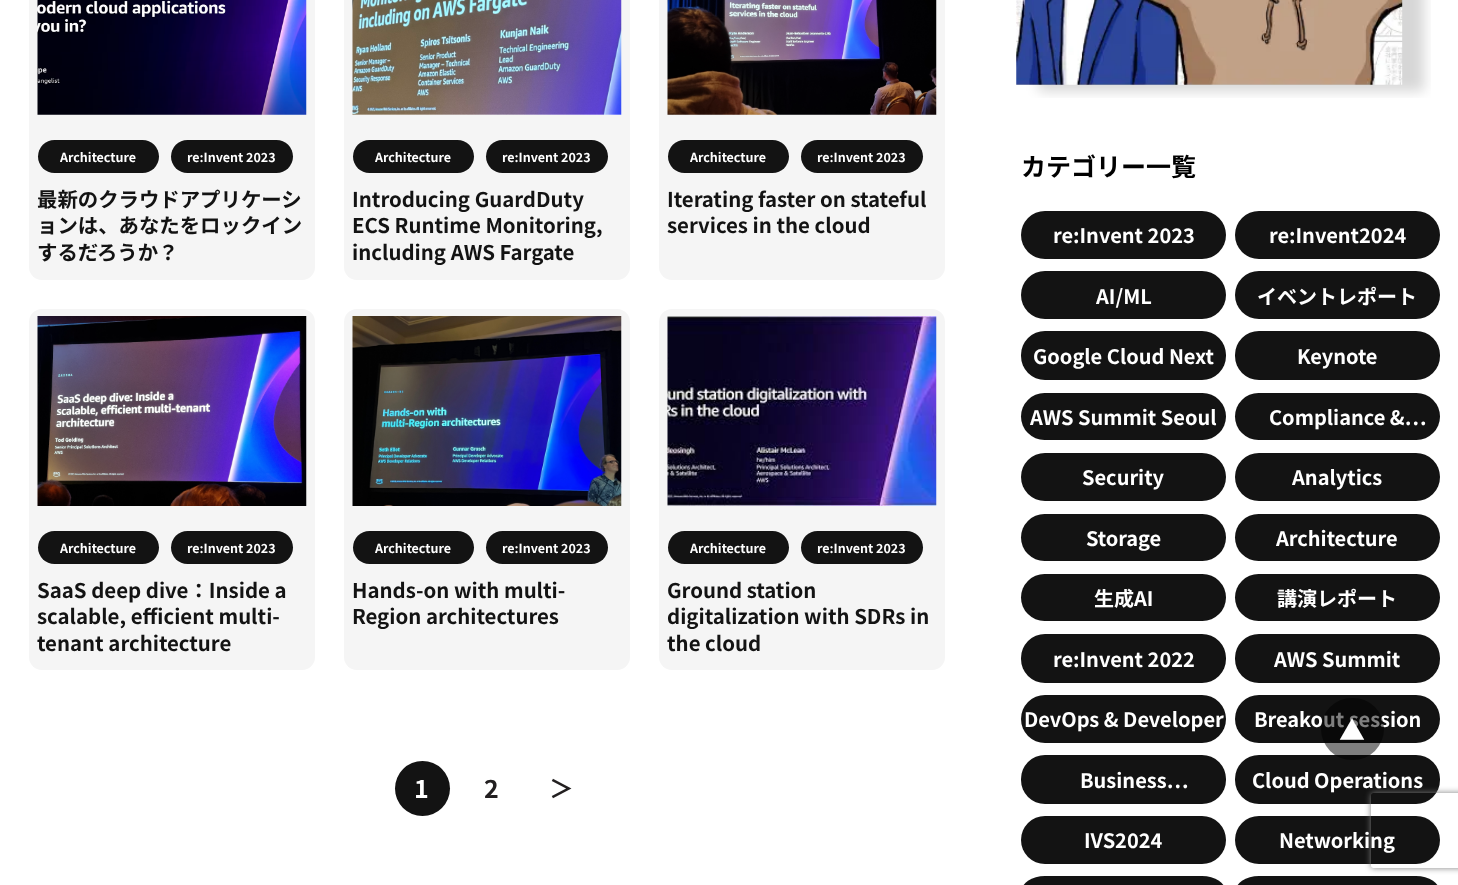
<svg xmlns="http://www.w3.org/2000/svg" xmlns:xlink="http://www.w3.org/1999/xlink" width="1458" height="885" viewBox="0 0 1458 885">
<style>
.cls-1{font:bold 12.5px Noto Sans JP;fill:#ffffff}
.cls-2{font:bold 20.4px Noto Sans JP;fill:#131313}
.cls-3{font:bold 25px Noto Sans JP;fill:#ffffff}
.cls-4{font:bold 25px Noto Sans JP;fill:#221f20}
.cls-5{font:bold 25px Noto Sans JP;fill:#000000}
.cls-6{font:bold 20px Noto Sans JP;fill:#ffffff}
.cls-7{font:26px Noto Sans JP;fill:#ffffff}
</style>
<defs>
<clipPath id="clip1"><path d="M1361 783H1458V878H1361ZM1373.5 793H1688.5C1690 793 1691 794 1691 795.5V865.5C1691 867 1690 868 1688.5 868H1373.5C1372 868 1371 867 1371 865.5V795.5C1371 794 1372 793 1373.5 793Z" clip-rule="evenodd"/></clipPath>
</defs>
<rect width="100%" height="100%" fill="#ffffff"/>
<rect fill="#f5f5f5" x="29" y="-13" width="286" height="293" rx="13"/>
<image xlink:href="image0.png" x="37" y="0" width="270" height="115"/>
<rect fill="#131313" x="38" y="140" width="121" height="33" rx="16.5"/>
<rect fill="#131313" x="171" y="140" width="122" height="33" rx="16.5"/>
<rect fill="#f5f5f5" x="344" y="-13" width="286" height="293" rx="13"/>
<image xlink:href="image1.png" x="352" y="0" width="270" height="115"/>
<rect fill="#131313" x="353" y="140" width="121" height="33" rx="16.5"/>
<rect fill="#131313" x="486" y="140" width="122" height="33" rx="16.5"/>
<rect fill="#f5f5f5" x="659" y="-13" width="286" height="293" rx="13"/>
<image xlink:href="image2.png" x="667" y="0" width="270" height="115"/>
<rect fill="#131313" x="668" y="140" width="121" height="33" rx="16.5"/>
<rect fill="#131313" x="801" y="140" width="122" height="33" rx="16.5"/>
<rect fill="#f5f5f5" x="29" y="309" width="286" height="361" rx="13"/>
<image xlink:href="image3.png" x="37" y="316" width="270" height="190"/>
<rect fill="#131313" x="38" y="531" width="121" height="33" rx="16.5"/>
<rect fill="#131313" x="171" y="531" width="122" height="33" rx="16.5"/>
<rect fill="#f5f5f5" x="344" y="309" width="286" height="361" rx="13"/>
<image xlink:href="image4.png" x="352" y="316" width="270" height="190"/>
<rect fill="#131313" x="353" y="531" width="121" height="33" rx="16.5"/>
<rect fill="#131313" x="486" y="531" width="122" height="33" rx="16.5"/>
<rect fill="#f5f5f5" x="659" y="309" width="286" height="361" rx="13"/>
<image xlink:href="image5.png" x="667" y="316" width="270" height="190"/>
<rect fill="#131313" x="668" y="531" width="121" height="33" rx="16.5"/>
<rect fill="#131313" x="801" y="531" width="122" height="33" rx="16.5"/>
<circle fill="#131313" cx="422.5" cy="788.5" r="27.5"/>
<image xlink:href="image6.png" x="1016" y="0" width="415" height="98"/>
<rect fill="#131313" x="1021" y="211" width="205" height="48" rx="24"/>
<rect fill="#131313" x="1235" y="211" width="205" height="48" rx="24"/>
<rect fill="#131313" x="1021" y="271" width="205" height="48" rx="24"/>
<rect fill="#131313" x="1235" y="271" width="205" height="48" rx="24"/>
<rect fill="#131313" x="1021" y="331" width="205" height="49" rx="24"/>
<rect fill="#131313" x="1235" y="331" width="205" height="49" rx="24"/>
<rect fill="#131313" x="1021" y="393" width="205" height="47" rx="23.5"/>
<rect fill="#131313" x="1235" y="393" width="205" height="47" rx="23.5"/>
<rect fill="#131313" x="1021" y="453" width="205" height="48" rx="24"/>
<rect fill="#131313" x="1235" y="453" width="205" height="48" rx="24"/>
<rect fill="#131313" x="1021" y="514" width="205" height="47" rx="23.5"/>
<rect fill="#131313" x="1235" y="514" width="205" height="47" rx="23.5"/>
<rect fill="#131313" x="1021" y="574" width="205" height="47" rx="23.5"/>
<rect fill="#131313" x="1235" y="574" width="205" height="47" rx="23.5"/>
<rect fill="#131313" x="1021" y="634" width="205" height="49" rx="24"/>
<rect fill="#131313" x="1235" y="634" width="205" height="49" rx="24"/>
<rect fill="#131313" x="1021" y="695" width="205" height="48" rx="24"/>
<rect fill="#131313" x="1235" y="695" width="205" height="48" rx="24"/>
<rect fill="#131313" x="1021" y="755" width="205" height="49" rx="24"/>
<rect fill="#131313" x="1235" y="755" width="205" height="49" rx="24"/>
<rect fill="#131313" x="1021" y="816" width="205" height="48" rx="24"/>
<rect fill="#131313" x="1235" y="816" width="205" height="48" rx="24"/>
<rect fill="#131313" x="1021" y="876" width="205" height="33" rx="24"/>
<rect fill="#131313" x="1235" y="876" width="205" height="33" rx="24"/>
<g clip-path="url(#clip1)">
<rect fill="#808080" filter="blur(3px)" x="1371" y="793" width="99" height="75" rx="2.5"/>
</g>
<text class="cls-1" x="60" y="162">Architecture</text>
<text class="cls-1" x="187" y="162">re:Invent 2023</text>
<text class="cls-2"><tspan x="37" y="207">最新のクラウドアプリケーシ</tspan><tspan x="37" y="233">ョンは、あなたをロックイン</tspan><tspan x="37" y="260">するだろうか？</tspan></text>
<text class="cls-1" x="375" y="162">Architecture</text>
<text class="cls-1" x="502" y="162">re:Invent 2023</text>
<text class="cls-2"><tspan x="352" y="207">Introducing GuardDuty</tspan><tspan x="352" y="233">ECS Runtime Monitoring,</tspan><tspan x="352" y="260">including AWS Fargate</tspan></text>
<text class="cls-1" x="690" y="162">Architecture</text>
<text class="cls-1" x="817" y="162">re:Invent 2023</text>
<text class="cls-2"><tspan x="667" y="207">Iterating faster on stateful</tspan><tspan x="667" y="233">services in the cloud</tspan></text>
<text class="cls-1" x="60" y="553">Architecture</text>
<text class="cls-1" x="187" y="553">re:Invent 2023</text>
<text class="cls-2"><tspan x="37" y="598">SaaS deep dive：Inside a</tspan><tspan x="37" y="624">scalable, efficient multi-</tspan><tspan x="37" y="651">tenant architecture</tspan></text>
<text class="cls-1" x="375" y="553">Architecture</text>
<text class="cls-1" x="502" y="553">re:Invent 2023</text>
<text class="cls-2"><tspan x="352" y="598">Hands-on with multi-</tspan><tspan x="352" y="624">Region architectures</tspan></text>
<text class="cls-1" x="690" y="553">Architecture</text>
<text class="cls-1" x="817" y="553">re:Invent 2023</text>
<text class="cls-2"><tspan x="667" y="598">Ground station</tspan><tspan x="667" y="624">digitalization with SDRs in</tspan><tspan x="667" y="651">the cloud</tspan></text>
<text class="cls-3" x="414" y="798">1</text>
<text class="cls-4" x="484" y="798">2</text>
<text class="cls-4" x="549" y="798">＞</text>
<text class="cls-5" x="1021" y="176">カテゴリー一覧</text>
<text class="cls-6" x="1053" y="243">re:Invent 2023</text>
<text class="cls-6" x="1269" y="243">re:Invent2024</text>
<text class="cls-6" x="1096" y="304">AI/ML</text>
<text class="cls-6" x="1257" y="304">イベントレポート</text>
<text class="cls-6" x="1033" y="364">Google Cloud Next</text>
<text class="cls-6" x="1297" y="364">Keynote</text>
<text class="cls-6" x="1030" y="425">AWS Summit Seoul</text>
<text class="cls-6" x="1269" y="425">Compliance &amp;…</text>
<text class="cls-6" x="1082" y="485">Security</text>
<text class="cls-6" x="1292" y="485">Analytics</text>
<text class="cls-6" x="1086" y="546">Storage</text>
<text class="cls-6" x="1276" y="546">Architecture</text>
<text class="cls-6" x="1094" y="606">生成AI</text>
<text class="cls-6" x="1277" y="606">講演レポート</text>
<text class="cls-6" x="1053" y="667">re:Invent 2022</text>
<text class="cls-6" x="1274" y="667">AWS Summit</text>
<text class="cls-6" x="1024" y="727">DevOps &amp; Developer</text>
<text class="cls-6" x="1254" y="727">Breakout session</text>
<text class="cls-6" x="1080" y="788">Business…</text>
<text class="cls-6" x="1252" y="788">Cloud Operations</text>
<text class="cls-6" x="1084" y="848">IVS2024</text>
<text class="cls-6" x="1279" y="848">Networking</text>
<rect fill="#000000" fill-opacity="0.5" x="1321" y="698" width="63" height="62" rx="31"/>
<text class="cls-7" x="1339" y="740">▲</text>
</svg>
